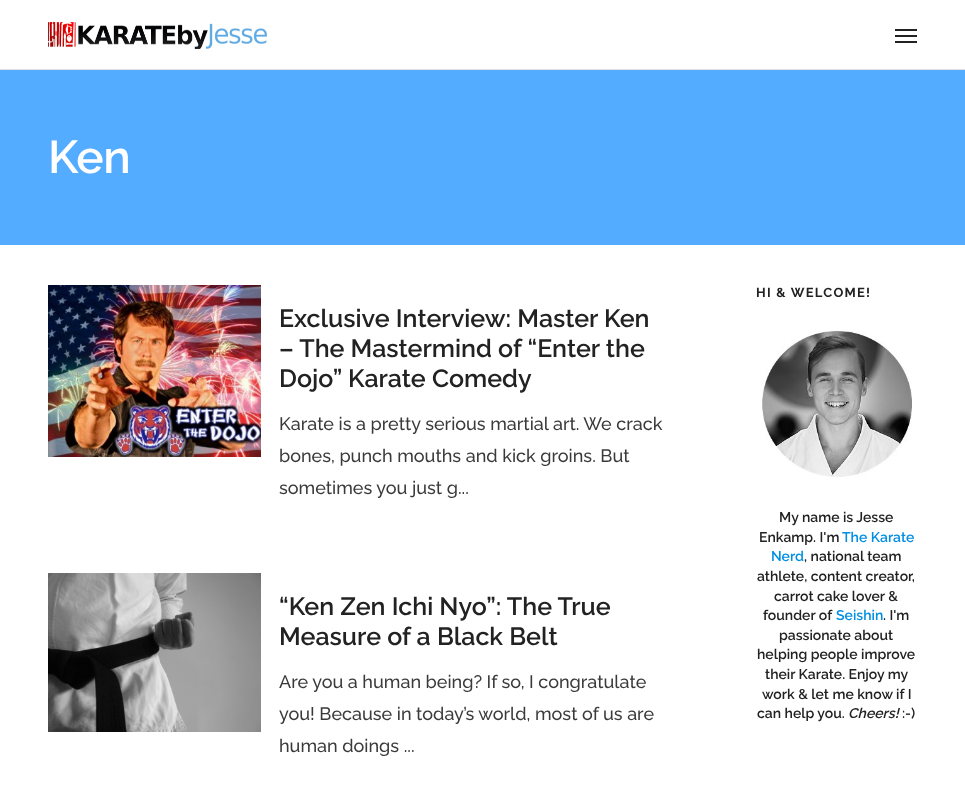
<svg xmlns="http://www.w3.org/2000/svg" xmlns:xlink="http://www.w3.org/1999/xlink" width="965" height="786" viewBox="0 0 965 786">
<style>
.cls-1{font:600 46px Raleway;letter-spacing:-0.5px;fill:#ffffff}
.cls-2{font:600 25px Raleway;fill:#222222}
.cls-3{font:500 18px Raleway;fill:#3a3a3a}
.cls-4{font:bold 13px Raleway;letter-spacing:1.25px;fill:#222222}
.cls-5{font:600 14px Raleway;fill:#222222}
.cls-6{font:600 14px Raleway;fill:#008fe2}
.cls-7{font:italic 600 14px Raleway;fill:#222222}
</style>
<rect width="100%" height="100%" fill="#ffffff"/>
<rect fill="#dfdfdf" x="0" y="69" width="965" height="1"/>
<image xlink:href="image0.png" x="48" y="22" width="219" height="27"/>
<rect fill="#222222" x="895" y="35" width="22" height="2"/>
<rect fill="#222222" x="895" y="29" width="22" height="2"/>
<rect fill="#222222" x="895" y="41" width="22" height="2"/>
<rect fill="#53acff" x="0" y="70" width="965" height="175"/>
<image xlink:href="image1.png" x="48" y="285" width="213" height="172"/>
<image xlink:href="image2.png" x="48" y="573" width="213" height="159"/>
<image xlink:href="image3.png" x="761" y="331" width="151" height="146"/>
<text class="cls-1" x="48" y="173">Ken</text>
<text class="cls-2"><tspan x="279" y="327">Exclusive Interview: Master Ken</tspan><tspan x="279" y="357">– The Mastermind of “Enter the</tspan><tspan x="279" y="387">Dojo” Karate Comedy</tspan></text>
<text class="cls-3"><tspan x="279" y="430">Karate is a pretty serious martial art. We crack</tspan><tspan x="279" y="462">bones, punch mouths and kick groins. But</tspan><tspan x="279" y="494">sometimes you just g...</tspan></text>
<text class="cls-2"><tspan x="279" y="615">“Ken Zen Ichi Nyo”: The True</tspan><tspan x="279" y="645">Measure of a Black Belt</tspan></text>
<text class="cls-3"><tspan x="279" y="688">Are you a human being? If so, I congratulate</tspan><tspan x="279" y="720">you! Because in today’s world, most of us are</tspan><tspan x="279" y="752">human doings ...</tspan></text>
<text class="cls-4" x="756" y="297">HI &amp; WELCOME!</text>
<text class="cls-5" x="779" y="522">My name is Jesse</text>
<text class="cls-5" x="759" y="542">Enkamp. I'm</text>
<text class="cls-6" x="842" y="542">The Karate</text>
<text class="cls-6" x="771" y="561">Nerd</text>
<text class="cls-5" x="804" y="561">, national team</text>
<text class="cls-5" x="757" y="581">athlete, content creator,</text>
<text class="cls-5" x="774" y="601">carrot cake lover &amp;</text>
<text class="cls-5" x="763" y="620">founder of</text>
<text class="cls-6" x="836" y="620">Seishin</text>
<text class="cls-5" x="883" y="620">. I'm</text>
<text class="cls-5" x="779" y="640">passionate about</text>
<text class="cls-5" x="757" y="659">helping people improve</text>
<text class="cls-5" x="765" y="679">their Karate. Enjoy my</text>
<text class="cls-5" x="762" y="699">work &amp; let me know if I</text>
<text class="cls-5" x="757" y="718">can help you.</text>
<text class="cls-7" x="848" y="718">Cheers!</text>
<text class="cls-5" x="902" y="718">:-)</text>
</svg>
